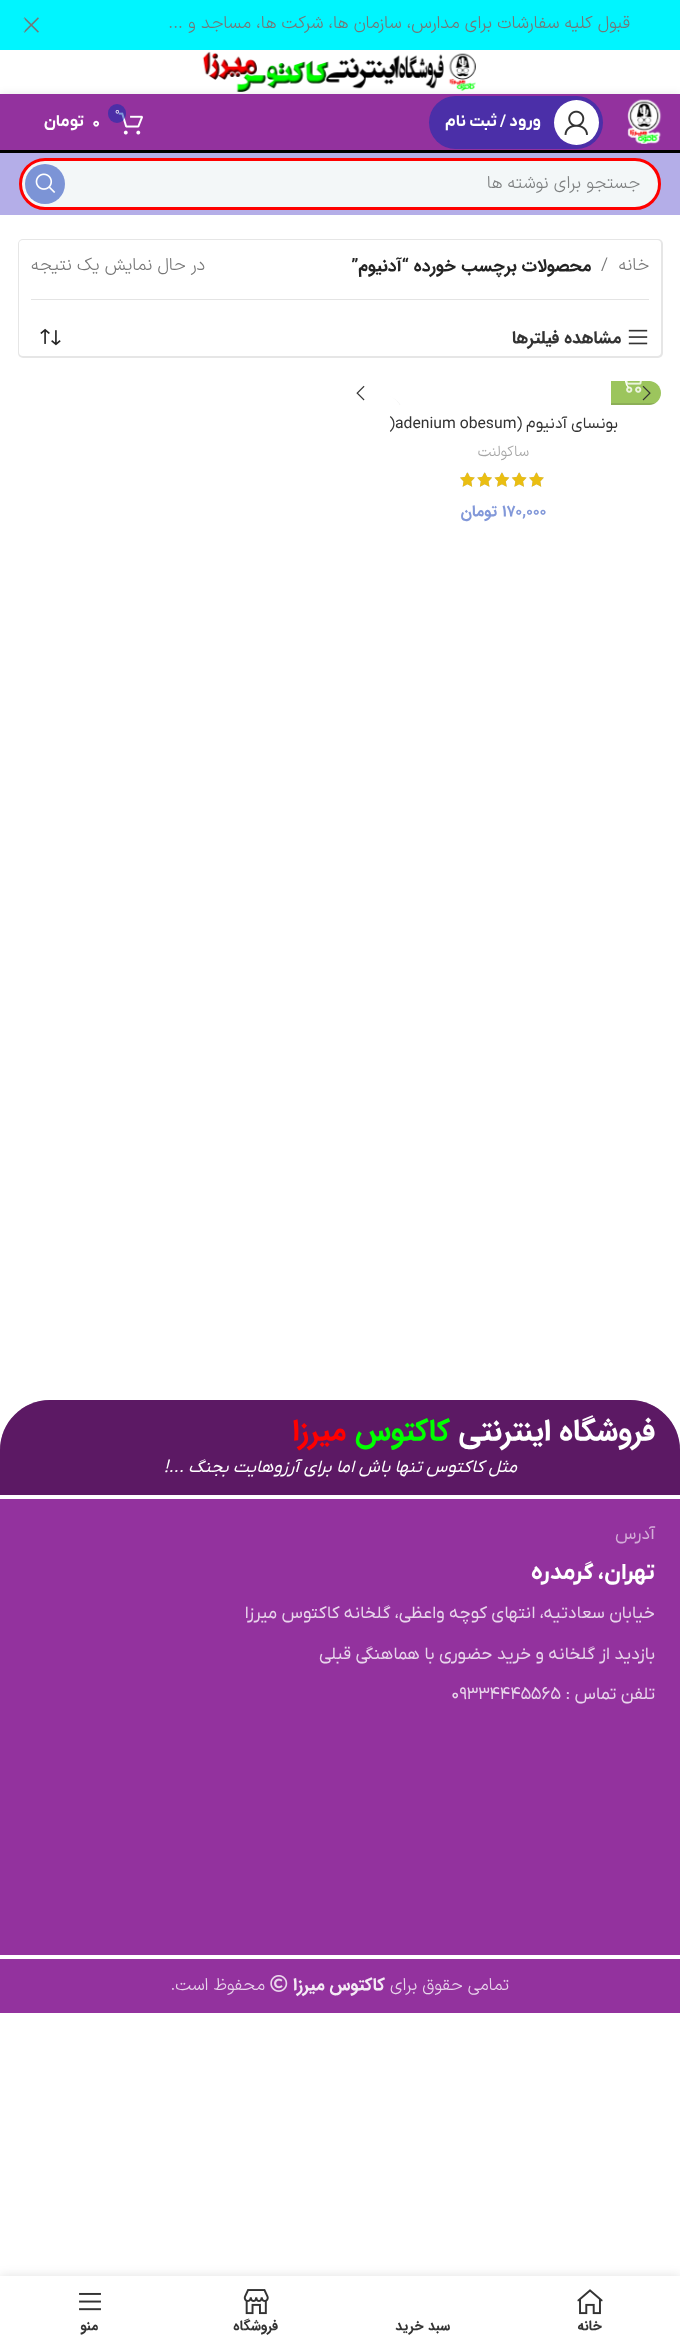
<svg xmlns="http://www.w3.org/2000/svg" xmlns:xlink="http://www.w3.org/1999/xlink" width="680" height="2345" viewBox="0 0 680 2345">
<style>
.cls-1{font:300 17.5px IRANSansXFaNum;direction:rtl;fill:#767676}
.cls-2{font:bold 16.25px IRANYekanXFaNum;direction:rtl;fill:#ffffff}
.cls-3{font:300 11px IRANSansXFaNum;fill:#ffffff}
.cls-4{font:bold 16.25px IRANYekanXFaNum;fill:#ffffff}
.cls-5{font:300 17.5px IRANSansXFaNum;direction:rtl;fill:#7e8081}
.cls-6{font:300 17.5px IRANSansXFaNum;fill:#767676}
.cls-7{font:bold 17.5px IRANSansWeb;direction:rtl;fill:#242424}
.cls-8{font:bold 17.5px IRANSansWeb;direction:rtl;fill:#333333}
.cls-9{font:15.75px IRANYekanXFaNum;direction:rtl;fill:#333333}
.cls-10{font:15.75px IRANYekanXFaNum;fill:#333333}
.cls-11{font:300 15px IRANSansXFaNum;direction:rtl;fill:#a5a5a5}
.cls-12{font:bold 15.75px IRANSansWeb;fill:#8298d9}
.cls-13{font:bold 15.75px IRANSansWeb;direction:rtl;fill:#8298d9}
.cls-14{font:bold 30px IRANSansWeb;direction:rtl;fill:#ffffff}
.cls-15{font:bold 30px IRANSansWeb;direction:rtl;fill:#00ff00}
.cls-16{font:bold 30px IRANSansWeb;direction:rtl;fill:#ff0000}
.cls-17{font:italic 17.5px IRANYekanXFaNum;direction:rtl;fill:#ffffff}
.cls-18{font:17.5px IRANYekanXFaNum;direction:rtl;fill:#d4add8}
.cls-19{font:bold 22.5px IRANYekanXFaNum;direction:rtl;fill:#ffffff}
.cls-20{font:17.5px IRANYekanXFaNum;direction:rtl;fill:#e9d6ec}
.cls-21{font:17.5px IRANYekanXFaNum;fill:#e9d6ec}
.cls-22{font:300 17.5px IRANSansXFaNum;direction:rtl;fill:#e9d6ec}
.cls-23{font:bold 17.5px IRANSansWeb;direction:rtl;fill:#f4ebf5}
.cls-24{font:bold 14px IRANSansWeb;direction:rtl;fill:#333333}
</style>
<defs>
<clipPath id="clip1"><rect x="346" y="381" width="315" height="24" rx="12"/></clipPath>
<clipPath id="clip2"><rect x="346" y="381" width="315" height="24" rx="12"/></clipPath>
</defs>
<rect width="100%" height="100%" fill="#ffffff"/>
<rect fill="#00f5ff" x="0" y="0" width="680" height="50"/>
<image xlink:href="image0.png" x="23" y="17" width="16" height="16"/>
<path fill="none" stroke="#00f5ff" stroke-width="1.2" d="M24.5 31.5C21 28 21 22 24.5 18.5"/>
<image xlink:href="image1.png" x="202" y="51" width="274" height="41"/>
<rect fill="#000000" fill-opacity="0.1" filter="blur(5px)" x="0" y="95" width="680" height="59"/>
<rect fill="#93329e" x="0" y="94" width="680" height="56"/>
<rect fill="#000000" x="0" y="150" width="680" height="3"/>
<image xlink:href="image2.png" x="627" y="99" width="35" height="45"/>
<rect fill="#4b2fa8" x="429" y="96" width="174" height="53" rx="26.5"/>
<circle fill="#ffffff" cx="576.5" cy="122.5" r="22.5"/>
<image xlink:href="image3.png" x="564" y="110" width="24" height="25"/>
<image xlink:href="image4.png" x="118" y="112" width="25" height="23"/>
<rect fill="#002cb2" fill-opacity="0.49" x="108" y="104" width="18" height="19" rx="9"/>
<rect fill="#b4aee8" x="0" y="153" width="680" height="62"/>
<rect fill="#f3f7f8" stroke="#ff0000" stroke-width="3" x="20.5" y="159.5" width="639" height="49" rx="24.5"/>
<circle fill="#7c94d6" cx="45" cy="184" r="20"/>
<image xlink:href="image5.png" x="35" y="173" width="21" height="20"/>
<rect fill="#e6e6e6" filter="blur(0.5px)" x="18" y="239" width="645" height="119" rx="5"/>
<rect fill="#ffffff" x="19" y="240" width="642" height="116" rx="4"/>
<rect fill="#e4e4e4" x="31" y="299" width="618" height="1"/>
<image xlink:href="image6.png" x="628" y="329" width="20" height="16"/>
<image xlink:href="image7.png" x="40" y="328" width="21" height="18"/>
<path fill="#9cc55d" d="M611 381H649C655.5 381 661 386.5 661 393C661 399.5 655.5 405 649 405H611Z"/>
<g clip-path="url(#clip1)">
<rect fill="#333333" fill-opacity="0.15" x="611" y="403" width="50" height="2"/>
</g>
<image xlink:href="image8.png" x="625" y="381" width="17" height="12"/>
<g clip-path="url(#clip1)">
<path fill="none" stroke="#ffffff" stroke-width="1.2" d="M628.5 387.5C624.5 383.5 624.5 376.5 628.5 372.5"/>
</g>
<image xlink:href="image9.png" x="642" y="385" width="9" height="16"/>
<image xlink:href="image10.png" x="356" y="385" width="9" height="16"/>
<g clip-path="url(#clip2)">
<rect fill="#000000" fill-opacity="0.1" filter="blur(0.5px)" x="360" y="395" width="44" height="44" rx="22"/>
</g>
<path fill="#ffffff" d="M381 394C393 394 403 404 403 416V405H359V416C359 404 369 394 381 394Z"/>
<image xlink:href="image11.png" x="460" y="472" width="84" height="15"/>
<image xlink:href="image12.png" x="460" y="473" width="84" height="14"/>
<path fill="#5c1964" d="M50 1400H630C657.5 1400 680 1422.5 680 1450V1495H0V1450C0 1422.5 22.5 1400 50 1400Z"/>
<path fill="#5c1964" fill-opacity="0.5" d="M50 1400H630C657.5 1400 680 1422.5 680 1450V1495H0V1450C0 1422.5 22.5 1400 50 1400Z"/>
<rect fill="#93329e" x="0" y="1499" width="680" height="456"/>
<rect fill="#93329e" x="0" y="1959" width="680" height="54"/>
<image xlink:href="image13.png" x="270" y="1975" width="18" height="17"/>
<rect fill="#000000" fill-opacity="0.12" filter="blur(5.5px)" x="0" y="2276" width="680" height="69"/>
<rect fill="#ffffff" x="0" y="2276" width="680" height="69"/>
<image xlink:href="image14.png" x="577" y="2289" width="26" height="26"/>
<image xlink:href="image15.png" x="243" y="2289" width="26" height="26"/>
<image xlink:href="image16.png" x="79" y="2292" width="22" height="19"/>
<text class="cls-1" x="630" y="28">قبول کليه سفارشات برای مدارس، سازمان ها، شرکت ها، مساجد و ...</text>
<text class="cls-2" x="541" y="126">ورود / ثبت نام</text>
<text class="cls-3" x="115" y="114">0</text>
<text class="cls-4" x="92" y="127">۰</text>
<text class="cls-2" x="84" y="126">تومان</text>
<text class="cls-5" x="640" y="188">جستجو برای نوشته ها</text>
<text class="cls-1" x="649" y="270">خانه</text>
<text class="cls-6" x="601" y="270">/</text>
<text class="cls-7" x="591" y="271">محصولات برچسب خورده “آدنیوم”</text>
<text class="cls-1" x="205" y="270">در حال نمایش یک نتیجه</text>
<text class="cls-8" x="621" y="343">مشاهده فیلترها</text>
<text class="cls-9" x="618" y="428">بونسای آدنیوم (</text>
<text class="cls-10" x="389" y="428">)adenium obesum</text>
<text class="cls-11" x="529" y="456">ساکولنت</text>
<text class="cls-12" x="502" y="516">۱۷۰,۰۰۰</text>
<text class="cls-13" x="497" y="516">تومان</text>
<text class="cls-14" x="655" y="1440">فروشگاه اینترنتی</text>
<text class="cls-15" x="450" y="1440">کاکتوس</text>
<text class="cls-16" x="346" y="1440">میرزا</text>
<text class="cls-17" x="517" y="1472">مثل کاکتوس تنها باش اما برای آرزوهایت بجنگ ...!</text>
<text class="cls-18" x="655" y="1539">آدرس</text>
<text class="cls-19" x="655" y="1579">تهران، گرمدره</text>
<text class="cls-20" x="655" y="1618">خیابان سعادتیه، انتهای کوچه واعظی، گلخانه کاکتوس میرزا</text>
<text class="cls-20" x="655" y="1659">بازدید از گلخانه و خرید حضوری با هماهنگی قبلی</text>
<text class="cls-20" x="655" y="1699">تلفن تماس :</text>
<text class="cls-21" x="451" y="1699">09334445565</text>
<text class="cls-22" x="509" y="1990">تمامی حقوق برای</text>
<text class="cls-23" x="385" y="1990">کاکتوس میرزا</text>
<text class="cls-22" x="265" y="1990">محفوظ است.</text>
<text class="cls-24" x="602" y="2330">خانه</text>
<text class="cls-24" x="450" y="2330">سبد خرید</text>
<text class="cls-24" x="278" y="2330">فروشگاه</text>
<text class="cls-24" x="98" y="2330">منو</text>
</svg>
